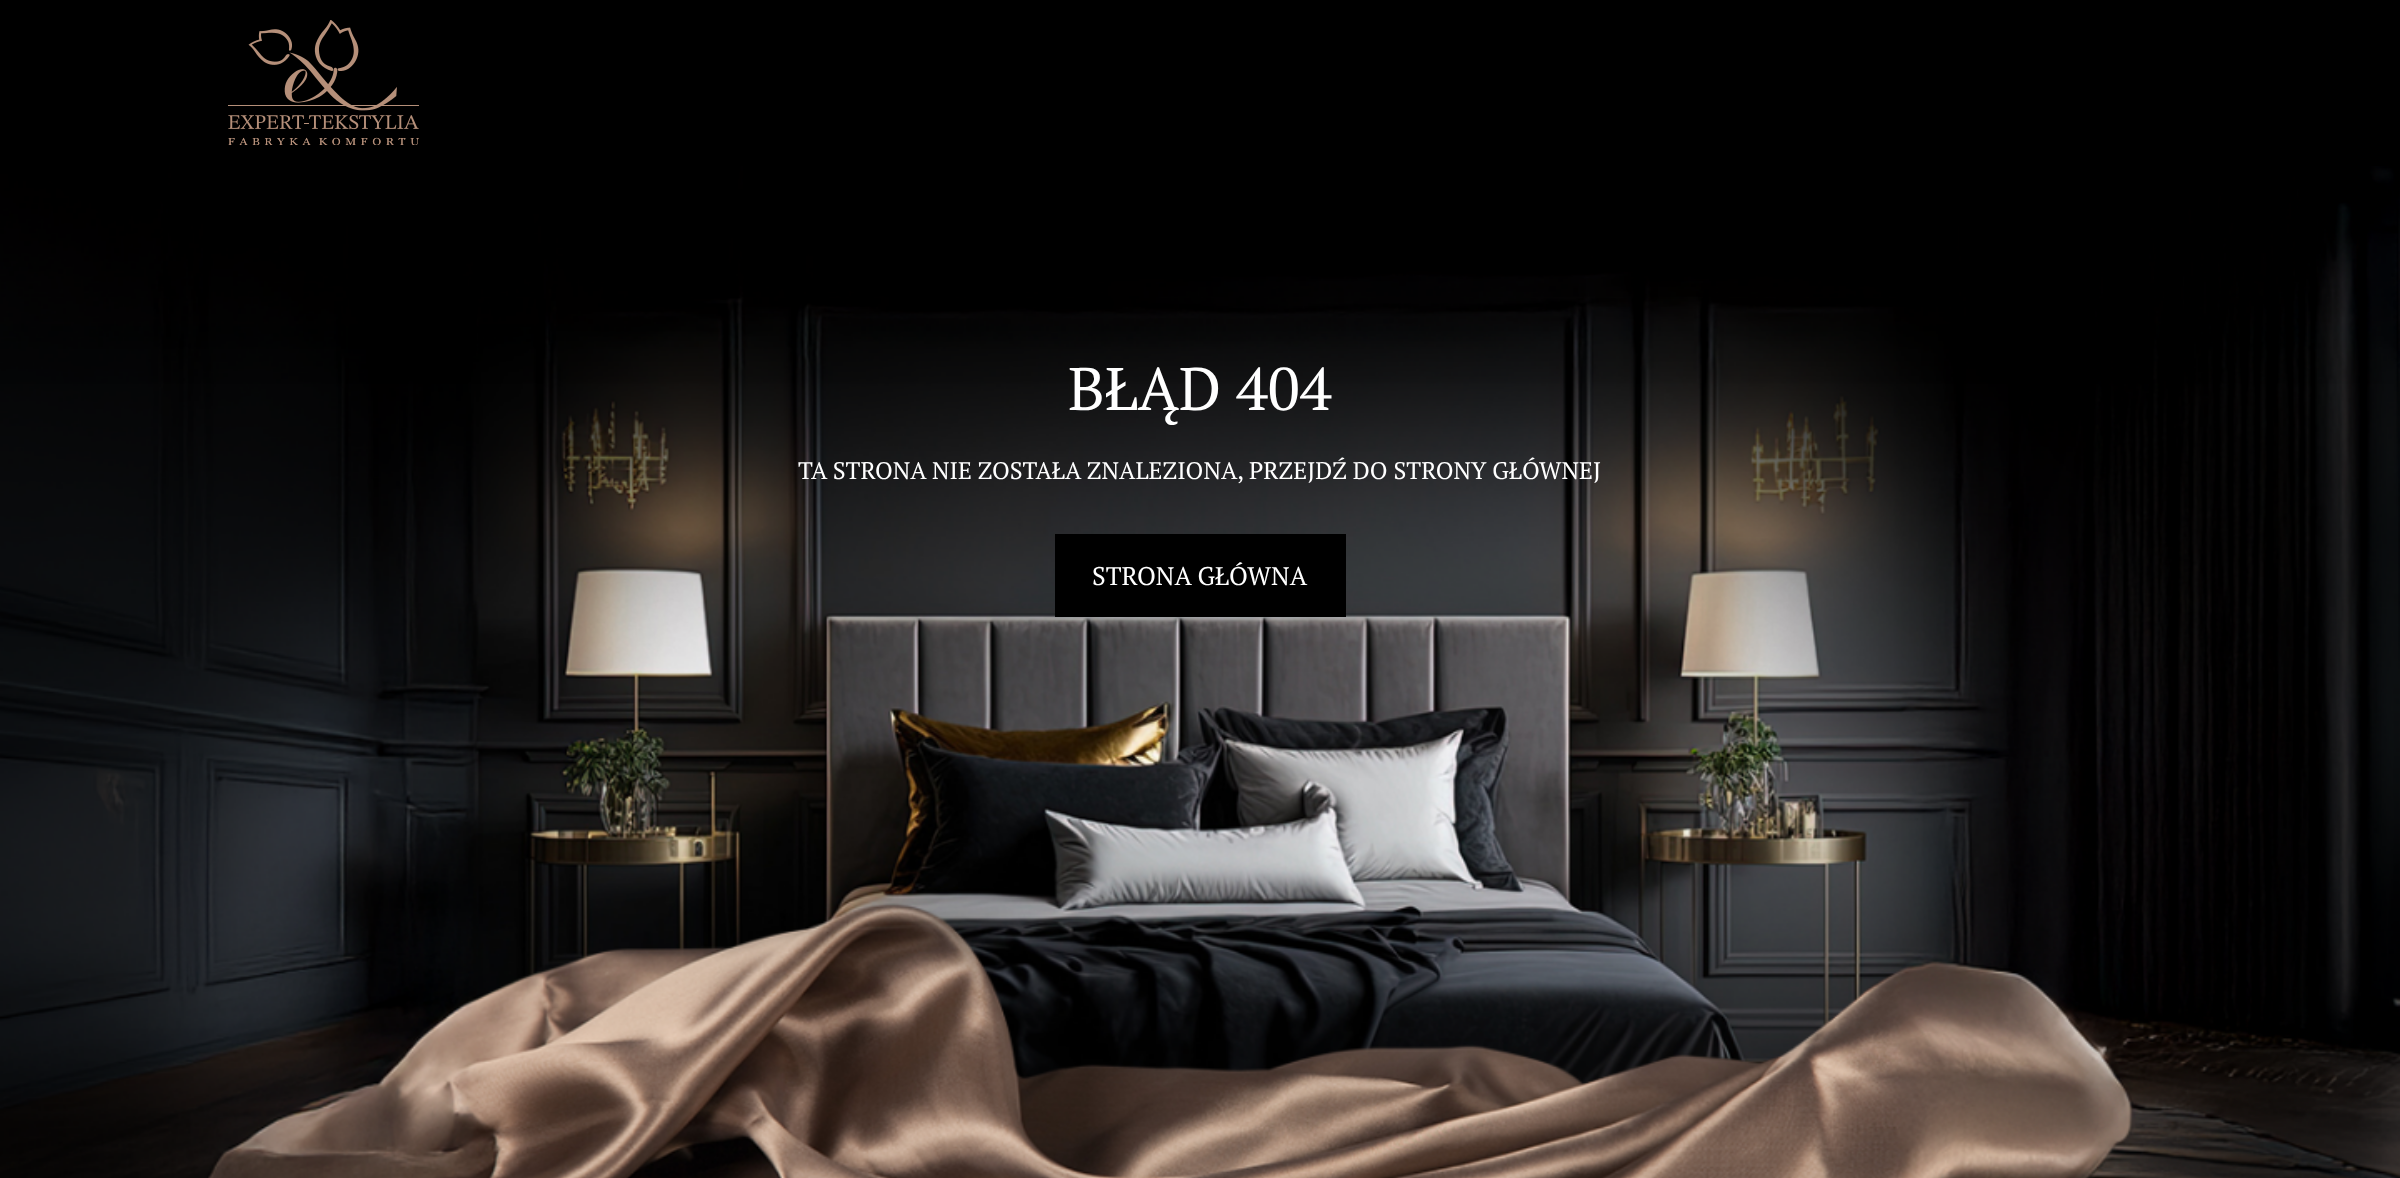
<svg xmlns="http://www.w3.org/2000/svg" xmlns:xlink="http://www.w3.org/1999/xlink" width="2400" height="1178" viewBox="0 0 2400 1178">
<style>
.cls-1{font:60px PT Serif;fill:#ffffff}
.cls-2{font:24px PT Serif;fill:#ffffff}
.cls-3{font:25.5px PT Serif;fill:#ffffff}
</style>
<rect width="100%" height="100%" fill="#000000"/>
<image xlink:href="image0.png" x="0" y="166" width="2400" height="1012"/>
<image xlink:href="image1.png" x="228" y="20" width="191" height="125"/>
<rect fill="#000000" x="1055" y="534" width="291" height="83"/>
<text class="cls-1" x="1068" y="410">BŁĄD 404</text>
<text class="cls-2" x="798" y="479">TA STRONA NIE ZOSTAŁA ZNALEZIONA, PRZEJDŹ DO STRONY GŁÓWNEJ</text>
<text class="cls-3" x="1092" y="585">STRONA GŁÓWNA</text>
</svg>
